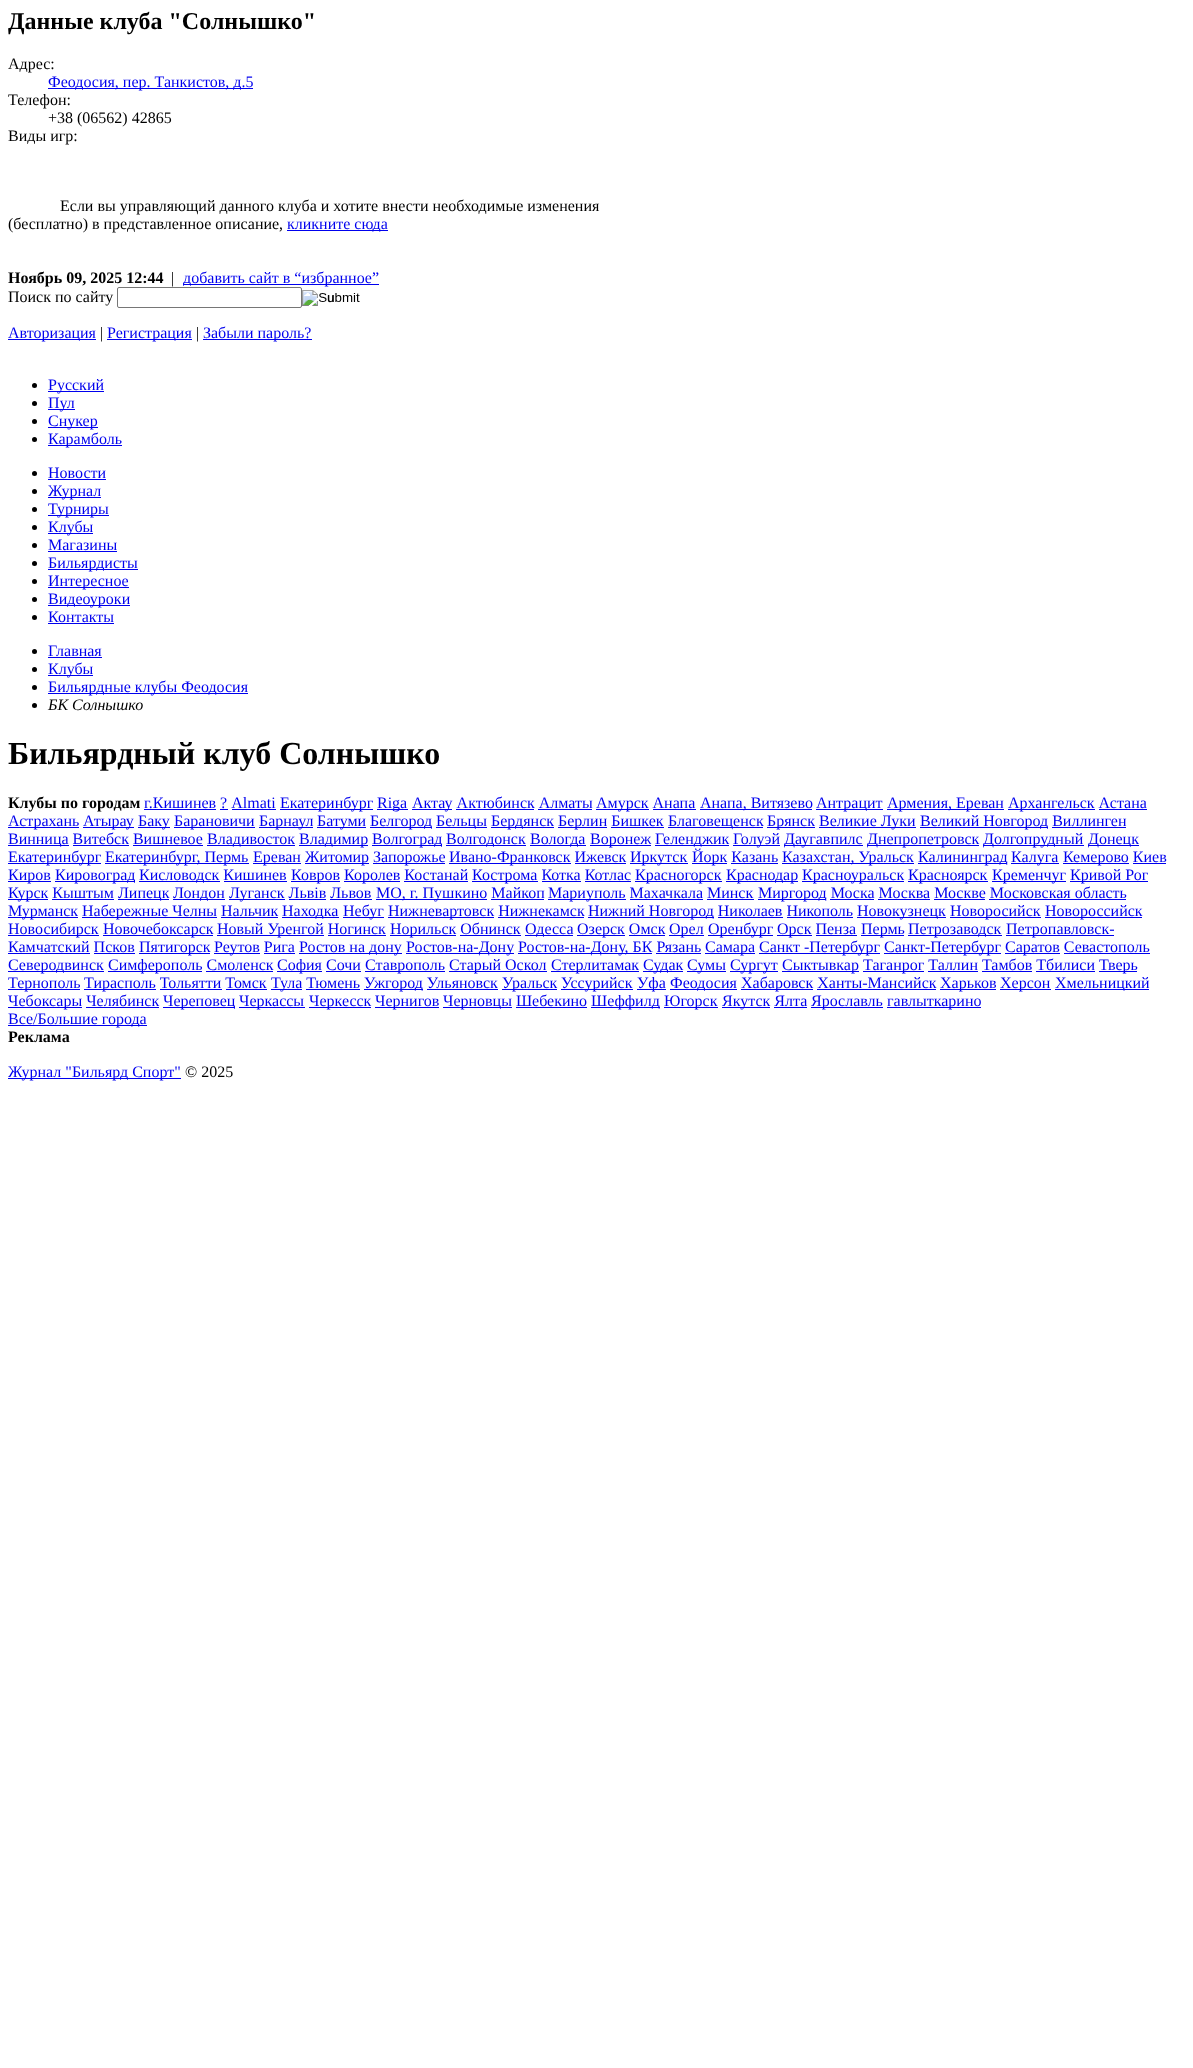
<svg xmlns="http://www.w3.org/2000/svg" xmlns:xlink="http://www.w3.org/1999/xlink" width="1193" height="2068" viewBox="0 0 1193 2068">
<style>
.cls-1{font:bold 24px Liberation Serif;fill:#000000}
.cls-2{font:16px Liberation Serif;fill:#000000}
.cls-3{font:16px Liberation Serif;fill:#0000ee}
.cls-4{font:bold 16px Liberation Serif;fill:#000000}
.cls-5{font:13px Liberation Sans;fill:#000000}
.cls-6{font:italic 16px Liberation Serif;fill:#000000}
.cls-7{font:bold 32px Liberation Serif;fill:#000000}
</style>
<rect width="100%" height="100%" fill="#ffffff"/>
<rect fill="#0000ee" x="48" y="88" width="205" height="1"/>
<rect fill="#0000ee" x="287" y="230" width="101" height="1"/>
<rect fill="#0000ee" x="183" y="284" width="196" height="1"/>
<rect fill="none" stroke="#767676" x="117.5" y="287.5" width="184" height="20" rx="1.5"/>
<image xlink:href="image0.png" x="302" y="290" width="58" height="16"/>
<rect fill="#0000ee" x="8" y="339" width="88" height="1"/>
<rect fill="#0000ee" x="107" y="339" width="85" height="1"/>
<rect fill="#0000ee" x="203" y="339" width="109" height="1"/>
<circle fill="#000000" cx="34.5" cy="385.5" r="2.5"/>
<rect fill="#0000ee" x="48" y="391" width="56" height="1"/>
<circle fill="#000000" cx="34.5" cy="403.5" r="2.5"/>
<rect fill="#0000ee" x="48" y="409" width="27" height="1"/>
<circle fill="#000000" cx="34.5" cy="421.5" r="2.5"/>
<rect fill="#0000ee" x="48" y="427" width="50" height="1"/>
<circle fill="#000000" cx="34.5" cy="439.5" r="2.5"/>
<rect fill="#0000ee" x="48" y="445" width="74" height="1"/>
<circle fill="#000000" cx="34.5" cy="473.5" r="2.5"/>
<rect fill="#0000ee" x="48" y="479" width="58" height="1"/>
<circle fill="#000000" cx="34.5" cy="491.5" r="2.5"/>
<rect fill="#0000ee" x="48" y="497" width="53" height="1"/>
<circle fill="#000000" cx="34.5" cy="509.5" r="2.5"/>
<rect fill="#0000ee" x="48" y="515" width="61" height="1"/>
<circle fill="#000000" cx="34.5" cy="527.5" r="2.5"/>
<rect fill="#0000ee" x="48" y="533" width="45" height="1"/>
<circle fill="#000000" cx="34.5" cy="545.5" r="2.5"/>
<rect fill="#0000ee" x="48" y="551" width="69" height="1"/>
<circle fill="#000000" cx="34.5" cy="563.5" r="2.5"/>
<rect fill="#0000ee" x="48" y="569" width="90" height="1"/>
<circle fill="#000000" cx="34.5" cy="581.5" r="2.5"/>
<rect fill="#0000ee" x="48" y="587" width="81" height="1"/>
<circle fill="#000000" cx="34.5" cy="599.5" r="2.5"/>
<rect fill="#0000ee" x="48" y="605" width="82" height="1"/>
<circle fill="#000000" cx="34.5" cy="617.5" r="2.5"/>
<rect fill="#0000ee" x="48" y="623" width="66" height="1"/>
<circle fill="#000000" cx="34.5" cy="651.5" r="2.5"/>
<rect fill="#0000ee" x="48" y="657" width="54" height="1"/>
<circle fill="#000000" cx="34.5" cy="669.5" r="2.5"/>
<rect fill="#0000ee" x="48" y="675" width="45" height="1"/>
<circle fill="#000000" cx="34.5" cy="687.5" r="2.5"/>
<rect fill="#0000ee" x="48" y="693" width="200" height="1"/>
<circle fill="#000000" cx="34.5" cy="705.5" r="2.5"/>
<rect fill="#0000ee" x="144" y="809" width="72" height="1"/>
<rect fill="#0000ee" x="280" y="809" width="93" height="1"/>
<rect fill="#0000ee" x="377" y="809" width="31" height="1"/>
<rect fill="#0000ee" x="412" y="809" width="40" height="1"/>
<rect fill="#0000ee" x="596" y="809" width="53" height="1"/>
<rect fill="#0000ee" x="700" y="809" width="112" height="1"/>
<rect fill="#0000ee" x="816" y="809" width="67" height="1"/>
<rect fill="#0000ee" x="887" y="809" width="117" height="1"/>
<rect fill="#0000ee" x="1008" y="809" width="87" height="1"/>
<rect fill="#0000ee" x="220" y="809" width="8" height="1"/>
<rect fill="#0000ee" x="232" y="809" width="44" height="1"/>
<rect fill="#0000ee" x="456" y="809" width="78" height="1"/>
<rect fill="#0000ee" x="538" y="809" width="54" height="1"/>
<rect fill="#0000ee" x="653" y="809" width="43" height="1"/>
<rect fill="#0000ee" x="1099" y="809" width="48" height="1"/>
<rect fill="#0000ee" x="8" y="827" width="71" height="1"/>
<rect fill="#0000ee" x="83" y="827" width="51" height="1"/>
<rect fill="#0000ee" x="138" y="827" width="32" height="1"/>
<rect fill="#0000ee" x="174" y="827" width="81" height="1"/>
<rect fill="#0000ee" x="259" y="827" width="54" height="1"/>
<rect fill="#0000ee" x="317" y="827" width="49" height="1"/>
<rect fill="#0000ee" x="370" y="827" width="62" height="1"/>
<rect fill="#0000ee" x="436" y="827" width="51" height="1"/>
<rect fill="#0000ee" x="491" y="827" width="63" height="1"/>
<rect fill="#0000ee" x="558" y="827" width="49" height="1"/>
<rect fill="#0000ee" x="668" y="827" width="95" height="1"/>
<rect fill="#0000ee" x="767" y="827" width="48" height="1"/>
<rect fill="#0000ee" x="819" y="827" width="97" height="1"/>
<rect fill="#0000ee" x="920" y="827" width="128" height="1"/>
<rect fill="#0000ee" x="611" y="827" width="53" height="1"/>
<rect fill="#0000ee" x="1052" y="827" width="74" height="1"/>
<rect fill="#0000ee" x="8" y="845" width="61" height="1"/>
<rect fill="#0000ee" x="207" y="845" width="88" height="1"/>
<rect fill="#0000ee" x="299" y="845" width="69" height="1"/>
<rect fill="#0000ee" x="372" y="845" width="70" height="1"/>
<rect fill="#0000ee" x="446" y="845" width="80" height="1"/>
<rect fill="#0000ee" x="530" y="845" width="56" height="1"/>
<rect fill="#0000ee" x="590" y="845" width="61" height="1"/>
<rect fill="#0000ee" x="655" y="845" width="74" height="1"/>
<rect fill="#0000ee" x="733" y="845" width="47" height="1"/>
<rect fill="#0000ee" x="784" y="845" width="79" height="1"/>
<rect fill="#0000ee" x="867" y="845" width="112" height="1"/>
<rect fill="#0000ee" x="983" y="845" width="101" height="1"/>
<rect fill="#0000ee" x="1088" y="845" width="51" height="1"/>
<rect fill="#0000ee" x="73" y="845" width="56" height="1"/>
<rect fill="#0000ee" x="133" y="845" width="70" height="1"/>
<rect fill="#0000ee" x="8" y="863" width="93" height="1"/>
<rect fill="#0000ee" x="105" y="863" width="144" height="1"/>
<rect fill="#0000ee" x="253" y="863" width="48" height="1"/>
<rect fill="#0000ee" x="305" y="863" width="64" height="1"/>
<rect fill="#0000ee" x="373" y="863" width="72" height="1"/>
<rect fill="#0000ee" x="449" y="863" width="122" height="1"/>
<rect fill="#0000ee" x="630" y="863" width="58" height="1"/>
<rect fill="#0000ee" x="692" y="863" width="35" height="1"/>
<rect fill="#0000ee" x="782" y="863" width="132" height="1"/>
<rect fill="#0000ee" x="918" y="863" width="89" height="1"/>
<rect fill="#0000ee" x="1011" y="863" width="48" height="1"/>
<rect fill="#0000ee" x="1063" y="863" width="66" height="1"/>
<rect fill="#0000ee" x="575" y="863" width="51" height="1"/>
<rect fill="#0000ee" x="731" y="863" width="47" height="1"/>
<rect fill="#0000ee" x="1133" y="863" width="33" height="1"/>
<rect fill="#0000ee" x="8" y="881" width="43" height="1"/>
<rect fill="#0000ee" x="55" y="881" width="80" height="1"/>
<rect fill="#0000ee" x="139" y="881" width="81" height="1"/>
<rect fill="#0000ee" x="291" y="881" width="49" height="1"/>
<rect fill="#0000ee" x="344" y="881" width="56" height="1"/>
<rect fill="#0000ee" x="472" y="881" width="66" height="1"/>
<rect fill="#0000ee" x="635" y="881" width="87" height="1"/>
<rect fill="#0000ee" x="726" y="881" width="72" height="1"/>
<rect fill="#0000ee" x="802" y="881" width="102" height="1"/>
<rect fill="#0000ee" x="908" y="881" width="80" height="1"/>
<rect fill="#0000ee" x="992" y="881" width="74" height="1"/>
<rect fill="#0000ee" x="1070" y="881" width="78" height="1"/>
<rect fill="#0000ee" x="224" y="881" width="63" height="1"/>
<rect fill="#0000ee" x="404" y="881" width="64" height="1"/>
<rect fill="#0000ee" x="542" y="881" width="39" height="1"/>
<rect fill="#0000ee" x="585" y="881" width="46" height="1"/>
<rect fill="#0000ee" x="8" y="899" width="40" height="1"/>
<rect fill="#0000ee" x="118" y="899" width="51" height="1"/>
<rect fill="#0000ee" x="173" y="899" width="52" height="1"/>
<rect fill="#0000ee" x="229" y="899" width="56" height="1"/>
<rect fill="#0000ee" x="376" y="899" width="111" height="1"/>
<rect fill="#0000ee" x="548" y="899" width="78" height="1"/>
<rect fill="#0000ee" x="758" y="899" width="68" height="1"/>
<rect fill="#0000ee" x="52" y="899" width="62" height="1"/>
<rect fill="#0000ee" x="289" y="899" width="37" height="1"/>
<rect fill="#0000ee" x="330" y="899" width="42" height="1"/>
<rect fill="#0000ee" x="491" y="899" width="53" height="1"/>
<rect fill="#0000ee" x="630" y="899" width="73" height="1"/>
<rect fill="#0000ee" x="707" y="899" width="47" height="1"/>
<rect fill="#0000ee" x="830" y="899" width="44" height="1"/>
<rect fill="#0000ee" x="878" y="899" width="52" height="1"/>
<rect fill="#0000ee" x="934" y="899" width="51" height="1"/>
<rect fill="#0000ee" x="989" y="899" width="137" height="1"/>
<rect fill="#0000ee" x="8" y="917" width="70" height="1"/>
<rect fill="#0000ee" x="82" y="917" width="135" height="1"/>
<rect fill="#0000ee" x="282" y="917" width="57" height="1"/>
<rect fill="#0000ee" x="343" y="917" width="41" height="1"/>
<rect fill="#0000ee" x="388" y="917" width="106" height="1"/>
<rect fill="#0000ee" x="588" y="917" width="126" height="1"/>
<rect fill="#0000ee" x="857" y="917" width="89" height="1"/>
<rect fill="#0000ee" x="950" y="917" width="91" height="1"/>
<rect fill="#0000ee" x="1045" y="917" width="97" height="1"/>
<rect fill="#0000ee" x="221" y="917" width="57" height="1"/>
<rect fill="#0000ee" x="498" y="917" width="86" height="1"/>
<rect fill="#0000ee" x="718" y="917" width="65" height="1"/>
<rect fill="#0000ee" x="787" y="917" width="66" height="1"/>
<rect fill="#0000ee" x="8" y="935" width="91" height="1"/>
<rect fill="#0000ee" x="103" y="935" width="110" height="1"/>
<rect fill="#0000ee" x="217" y="935" width="107" height="1"/>
<rect fill="#0000ee" x="390" y="935" width="66" height="1"/>
<rect fill="#0000ee" x="525" y="935" width="48" height="1"/>
<rect fill="#0000ee" x="577" y="935" width="48" height="1"/>
<rect fill="#0000ee" x="669" y="935" width="35" height="1"/>
<rect fill="#0000ee" x="708" y="935" width="65" height="1"/>
<rect fill="#0000ee" x="777" y="935" width="35" height="1"/>
<rect fill="#0000ee" x="861" y="935" width="43" height="1"/>
<rect fill="#0000ee" x="908" y="935" width="94" height="1"/>
<rect fill="#0000ee" x="1006" y="935" width="108" height="1"/>
<rect fill="#0000ee" x="328" y="935" width="58" height="1"/>
<rect fill="#0000ee" x="460" y="935" width="61" height="1"/>
<rect fill="#0000ee" x="629" y="935" width="36" height="1"/>
<rect fill="#0000ee" x="816" y="935" width="41" height="1"/>
<rect fill="#0000ee" x="8" y="953" width="82" height="1"/>
<rect fill="#0000ee" x="139" y="953" width="71" height="1"/>
<rect fill="#0000ee" x="214" y="953" width="46" height="1"/>
<rect fill="#0000ee" x="299" y="953" width="103" height="1"/>
<rect fill="#0000ee" x="406" y="953" width="108" height="1"/>
<rect fill="#0000ee" x="518" y="953" width="134" height="1"/>
<rect fill="#0000ee" x="705" y="953" width="50" height="1"/>
<rect fill="#0000ee" x="759" y="953" width="121" height="1"/>
<rect fill="#0000ee" x="884" y="953" width="117" height="1"/>
<rect fill="#0000ee" x="1005" y="953" width="55" height="1"/>
<rect fill="#0000ee" x="94" y="953" width="41" height="1"/>
<rect fill="#0000ee" x="264" y="953" width="31" height="1"/>
<rect fill="#0000ee" x="656" y="953" width="45" height="1"/>
<rect fill="#0000ee" x="1064" y="953" width="86" height="1"/>
<rect fill="#0000ee" x="8" y="971" width="96" height="1"/>
<rect fill="#0000ee" x="108" y="971" width="94" height="1"/>
<rect fill="#0000ee" x="277" y="971" width="45" height="1"/>
<rect fill="#0000ee" x="365" y="971" width="80" height="1"/>
<rect fill="#0000ee" x="449" y="971" width="98" height="1"/>
<rect fill="#0000ee" x="551" y="971" width="88" height="1"/>
<rect fill="#0000ee" x="643" y="971" width="40" height="1"/>
<rect fill="#0000ee" x="687" y="971" width="39" height="1"/>
<rect fill="#0000ee" x="730" y="971" width="48" height="1"/>
<rect fill="#0000ee" x="782" y="971" width="77" height="1"/>
<rect fill="#0000ee" x="863" y="971" width="61" height="1"/>
<rect fill="#0000ee" x="1099" y="971" width="38" height="1"/>
<rect fill="#0000ee" x="206" y="971" width="67" height="1"/>
<rect fill="#0000ee" x="326" y="971" width="35" height="1"/>
<rect fill="#0000ee" x="928" y="971" width="50" height="1"/>
<rect fill="#0000ee" x="982" y="971" width="50" height="1"/>
<rect fill="#0000ee" x="1036" y="971" width="59" height="1"/>
<rect fill="#0000ee" x="8" y="989" width="72" height="1"/>
<rect fill="#0000ee" x="84" y="989" width="72" height="1"/>
<rect fill="#0000ee" x="271" y="989" width="31" height="1"/>
<rect fill="#0000ee" x="364" y="989" width="59" height="1"/>
<rect fill="#0000ee" x="502" y="989" width="55" height="1"/>
<rect fill="#0000ee" x="561" y="989" width="72" height="1"/>
<rect fill="#0000ee" x="637" y="989" width="29" height="1"/>
<rect fill="#0000ee" x="670" y="989" width="67" height="1"/>
<rect fill="#0000ee" x="741" y="989" width="72" height="1"/>
<rect fill="#0000ee" x="940" y="989" width="56" height="1"/>
<rect fill="#0000ee" x="1000" y="989" width="51" height="1"/>
<rect fill="#0000ee" x="1055" y="989" width="94" height="1"/>
<rect fill="#0000ee" x="160" y="989" width="62" height="1"/>
<rect fill="#0000ee" x="226" y="989" width="41" height="1"/>
<rect fill="#0000ee" x="306" y="989" width="54" height="1"/>
<rect fill="#0000ee" x="427" y="989" width="71" height="1"/>
<rect fill="#0000ee" x="817" y="989" width="119" height="1"/>
<rect fill="#0000ee" x="8" y="1007" width="74" height="1"/>
<rect fill="#0000ee" x="163" y="1007" width="72" height="1"/>
<rect fill="#0000ee" x="239" y="1007" width="66" height="1"/>
<rect fill="#0000ee" x="309" y="1007" width="62" height="1"/>
<rect fill="#0000ee" x="375" y="1007" width="64" height="1"/>
<rect fill="#0000ee" x="443" y="1007" width="69" height="1"/>
<rect fill="#0000ee" x="591" y="1007" width="69" height="1"/>
<rect fill="#0000ee" x="664" y="1007" width="54" height="1"/>
<rect fill="#0000ee" x="722" y="1007" width="48" height="1"/>
<rect fill="#0000ee" x="811" y="1007" width="72" height="1"/>
<rect fill="#0000ee" x="887" y="1007" width="94" height="1"/>
<rect fill="#0000ee" x="86" y="1007" width="73" height="1"/>
<rect fill="#0000ee" x="516" y="1007" width="71" height="1"/>
<rect fill="#0000ee" x="774" y="1007" width="33" height="1"/>
<rect fill="#0000ee" x="8" y="1025" width="139" height="1"/>
<rect fill="#0000ee" x="8" y="1078" width="173" height="1"/>
<text class="cls-1" x="8" y="29">Данные клуба "Солнышко"</text>
<text class="cls-2" x="8" y="69">Адрес:</text>
<text class="cls-3" x="48" y="87">Феодосия, пер. Танкистов, д.5</text>
<text class="cls-2" x="8" y="105">Телефон:</text>
<text class="cls-2" x="48" y="123">+38 (06562) 42865</text>
<text class="cls-2" x="8" y="141">Виды игр:</text>
<text class="cls-2" x="60" y="211">Если вы управляющий данного клуба и хотите внести необходимые изменения</text>
<text class="cls-2" x="8" y="229">(бесплатно) в представленное описание,</text>
<text class="cls-3" x="287" y="229">кликните сюда</text>
<text class="cls-4" x="8" y="283">Ноябрь 09, 2025 12:44</text>
<text class="cls-2" x="171" y="283">|</text>
<text class="cls-3" x="183" y="283">добавить сайт в “избранное”</text>
<text class="cls-2" x="8" y="302">Поиск по сайту</text>
<text class="cls-5" x="327" y="302">u</text>
<text class="cls-3" x="8" y="338">Авторизация</text>
<text class="cls-2" x="100" y="338">|</text>
<text class="cls-3" x="107" y="338">Регистрация</text>
<text class="cls-2" x="196" y="338">|</text>
<text class="cls-3" x="203" y="338">Забыли пароль?</text>
<text class="cls-3"><tspan x="48" y="390">Русский</tspan><tspan x="48" y="408">Пул</tspan><tspan x="48" y="426">Снукер</tspan><tspan x="48" y="444">Карамболь</tspan></text>
<text class="cls-3"><tspan x="48" y="478">Новости</tspan><tspan x="48" y="496">Журнал</tspan><tspan x="48" y="514">Турниры</tspan><tspan x="48" y="532">Клубы</tspan><tspan x="48" y="550">Магазины</tspan><tspan x="48" y="568">Бильярдисты</tspan><tspan x="48" y="586">Интересное</tspan><tspan x="48" y="604">Видеоуроки</tspan><tspan x="48" y="622">Контакты</tspan></text>
<text class="cls-3"><tspan x="48" y="656">Главная</tspan><tspan x="48" y="674">Клубы</tspan><tspan x="48" y="692">Бильярдные клубы Феодосия</tspan></text>
<text class="cls-6" x="48" y="710">БК Солнышко</text>
<text class="cls-7" x="8" y="764">Бильярдный клуб Солнышко</text>
<text class="cls-4" x="8" y="808">Клубы по городам</text>
<text class="cls-3" x="144" y="808">г.Кишинев ? Almati</text>
<text class="cls-3" x="280" y="808">Eкатеринбург</text>
<text class="cls-3" x="377" y="808">Riga</text>
<text class="cls-3" x="412" y="808">Актау Актюбинск Алматы</text>
<text class="cls-3" x="596" y="808">Амурск Анапа</text>
<text class="cls-3" x="700" y="808">Анапа, Витязево</text>
<text class="cls-3" x="816" y="808">Антрацит</text>
<text class="cls-3" x="887" y="808">Армения, Ереван</text>
<text class="cls-3" x="1008" y="808">Архангельск Астана</text>
<text class="cls-3" x="8" y="826">Астрахань</text>
<text class="cls-3" x="83" y="826">Атырау</text>
<text class="cls-3" x="138" y="826">Баку</text>
<text class="cls-3" x="174" y="826">Барановичи</text>
<text class="cls-3" x="259" y="826">Барнаул</text>
<text class="cls-3" x="317" y="826">Батуми</text>
<text class="cls-3" x="370" y="826">Белгород</text>
<text class="cls-3" x="436" y="826">Бельцы</text>
<text class="cls-3" x="491" y="826">Бердянск</text>
<text class="cls-3" x="558" y="826">Берлин Бишкек</text>
<text class="cls-3" x="668" y="826">Благовещенск</text>
<text class="cls-3" x="767" y="826">Брянск</text>
<text class="cls-3" x="819" y="826">Великие Луки</text>
<text class="cls-3" x="920" y="826">Великий Новгород Виллинген</text>
<text class="cls-3" x="8" y="844">Винница Витебск Вишневое</text>
<text class="cls-3" x="207" y="844">Владивосток</text>
<text class="cls-3" x="299" y="844">Владимир</text>
<text class="cls-3" x="372" y="844">Волгоград</text>
<text class="cls-3" x="446" y="844">Волгодонск</text>
<text class="cls-3" x="530" y="844">Вологда</text>
<text class="cls-3" x="590" y="844">Воронеж</text>
<text class="cls-3" x="655" y="844">Геленджик</text>
<text class="cls-3" x="733" y="844">Голуэй</text>
<text class="cls-3" x="784" y="844">Даугавпилс</text>
<text class="cls-3" x="867" y="844">Днепропетровск</text>
<text class="cls-3" x="983" y="844">Долгопрудный</text>
<text class="cls-3" x="1088" y="844">Донецк</text>
<text class="cls-3" x="8" y="862">Екатеринбург</text>
<text class="cls-3" x="105" y="862">Екатеринбург, Пермь</text>
<text class="cls-3" x="253" y="862">Ереван</text>
<text class="cls-3" x="305" y="862">Житомир</text>
<text class="cls-3" x="373" y="862">Запорожье</text>
<text class="cls-3" x="449" y="862">Ивано-Франковск Ижевск</text>
<text class="cls-3" x="630" y="862">Иркутск</text>
<text class="cls-3" x="692" y="862">Йорк Казань</text>
<text class="cls-3" x="782" y="862">Казахстан, Уральск</text>
<text class="cls-3" x="918" y="862">Калининград</text>
<text class="cls-3" x="1011" y="862">Калуга</text>
<text class="cls-3" x="1063" y="862">Кемерово Киев</text>
<text class="cls-3" x="8" y="880">Киров</text>
<text class="cls-3" x="55" y="880">Кировоград</text>
<text class="cls-3" x="139" y="880">Кисловодск Кишинев</text>
<text class="cls-3" x="291" y="880">Ковров</text>
<text class="cls-3" x="344" y="880">Королев Костанай</text>
<text class="cls-3" x="472" y="880">Кострома Котка Котлас</text>
<text class="cls-3" x="635" y="880">Красногорск</text>
<text class="cls-3" x="726" y="880">Краснодар</text>
<text class="cls-3" x="802" y="880">Красноуральск</text>
<text class="cls-3" x="908" y="880">Красноярск</text>
<text class="cls-3" x="992" y="880">Кременчуг</text>
<text class="cls-3" x="1070" y="880">Кривой Рог</text>
<text class="cls-3" x="8" y="898">Курск Кыштым</text>
<text class="cls-3" x="118" y="898">Липецк</text>
<text class="cls-3" x="173" y="898">Лондон</text>
<text class="cls-3" x="229" y="898">Луганск Львів Львов</text>
<text class="cls-3" x="376" y="898">МО, г. Пушкино Майкоп</text>
<text class="cls-3" x="548" y="898">Мариуполь Махачкала Минск</text>
<text class="cls-3" x="758" y="898">Миргород Моска Москва Москве Московская область</text>
<text class="cls-3" x="8" y="916">Мурманск</text>
<text class="cls-3" x="82" y="916">Набережные Челны Нальчик</text>
<text class="cls-3" x="282" y="916">Находка</text>
<text class="cls-3" x="343" y="916">Небуг</text>
<text class="cls-3" x="388" y="916">Нижневартовск Нижнекамск</text>
<text class="cls-3" x="588" y="916">Нижний Новгород Николаев Никополь</text>
<text class="cls-3" x="857" y="916">Новокузнецк</text>
<text class="cls-3" x="950" y="916">Новоросийск</text>
<text class="cls-3" x="1045" y="916">Новороссийск</text>
<text class="cls-3" x="8" y="934">Новосибирск</text>
<text class="cls-3" x="103" y="934">Новочебоксарск</text>
<text class="cls-3" x="217" y="934">Новый Уренгой Ногинск</text>
<text class="cls-3" x="390" y="934">Норильск Обнинск</text>
<text class="cls-3" x="525" y="934">Одесса</text>
<text class="cls-3" x="577" y="934">Озерск Омск</text>
<text class="cls-3" x="669" y="934">Орел</text>
<text class="cls-3" x="708" y="934">Оренбург</text>
<text class="cls-3" x="777" y="934">Орск Пенза</text>
<text class="cls-3" x="861" y="934">Пермь</text>
<text class="cls-3" x="908" y="934">Петрозаводск</text>
<text class="cls-3" x="1006" y="934">Петропавловск-</text>
<text class="cls-3" x="8" y="952">Камчатский Псков</text>
<text class="cls-3" x="139" y="952">Пятигорск</text>
<text class="cls-3" x="214" y="952">Реутов Рига</text>
<text class="cls-3" x="299" y="952">Ростов на дону</text>
<text class="cls-3" x="406" y="952">Ростов-на-Дону</text>
<text class="cls-3" x="518" y="952">Ростов-на-Дону, БК Рязань</text>
<text class="cls-3" x="705" y="952">Самара</text>
<text class="cls-3" x="759" y="952">Санкт -Петербург</text>
<text class="cls-3" x="884" y="952">Санкт-Петербург</text>
<text class="cls-3" x="1005" y="952">Саратов Севастополь</text>
<text class="cls-3" x="8" y="970">Северодвинск</text>
<text class="cls-3" x="108" y="970">Симферополь Смоленск</text>
<text class="cls-3" x="277" y="970">София Сочи</text>
<text class="cls-3" x="365" y="970">Ставрополь</text>
<text class="cls-3" x="449" y="970">Старый Оскол</text>
<text class="cls-3" x="551" y="970">Стерлитамак</text>
<text class="cls-3" x="643" y="970">Судак</text>
<text class="cls-3" x="687" y="970">Сумы</text>
<text class="cls-3" x="730" y="970">Сургут</text>
<text class="cls-3" x="782" y="970">Сыктывкар</text>
<text class="cls-3" x="863" y="970">Таганрог Таллин Тамбов Тбилиси</text>
<text class="cls-3" x="1099" y="970">Тверь</text>
<text class="cls-3" x="8" y="988">Тернополь</text>
<text class="cls-3" x="84" y="988">Тирасполь Тольятти Томск</text>
<text class="cls-3" x="271" y="988">Тула Тюмень</text>
<text class="cls-3" x="364" y="988">Ужгород Ульяновск</text>
<text class="cls-3" x="502" y="988">Уральск</text>
<text class="cls-3" x="561" y="988">Уссурийск</text>
<text class="cls-3" x="637" y="988">Уфа</text>
<text class="cls-3" x="670" y="988">Феодосия</text>
<text class="cls-3" x="741" y="988">Хабаровск Ханты-Мансийск</text>
<text class="cls-3" x="940" y="988">Харьков</text>
<text class="cls-3" x="1000" y="988">Херсон</text>
<text class="cls-3" x="1055" y="988">Хмельницкий</text>
<text class="cls-3" x="8" y="1006">Чебоксары Челябинск</text>
<text class="cls-3" x="163" y="1006">Череповец</text>
<text class="cls-3" x="239" y="1006">Черкассы</text>
<text class="cls-3" x="309" y="1006">Черкесск</text>
<text class="cls-3" x="375" y="1006">Чернигов</text>
<text class="cls-3" x="443" y="1006">Черновцы Шебекино</text>
<text class="cls-3" x="591" y="1006">Шеффилд</text>
<text class="cls-3" x="664" y="1006">Югорск</text>
<text class="cls-3" x="722" y="1006">Якутск Ялта</text>
<text class="cls-3" x="811" y="1006">Ярославль</text>
<text class="cls-3" x="887" y="1006">гавлыткарино</text>
<text class="cls-3" x="8" y="1024">Все/Большие города</text>
<text class="cls-4" x="8" y="1042">Реклама</text>
<text class="cls-3" x="8" y="1077">Журнал "Бильярд Спорт"</text>
<text class="cls-2" x="185" y="1077">© 2025</text>
</svg>
